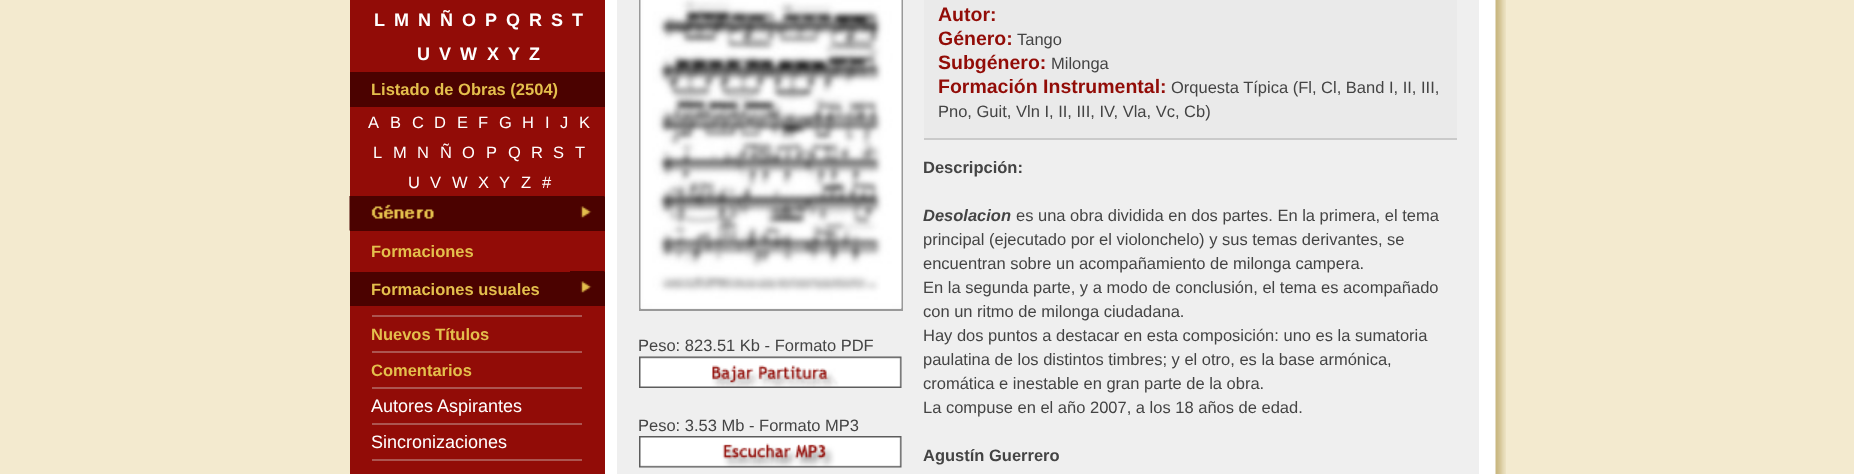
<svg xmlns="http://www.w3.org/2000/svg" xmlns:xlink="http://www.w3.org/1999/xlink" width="1854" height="474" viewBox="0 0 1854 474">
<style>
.cls-1{font:bold 18px Liberation Sans;fill:#ffffff}
.cls-2{font:bold 16.5px Liberation Sans;fill:#e4bf4c}
.cls-3{font:16.5px Liberation Sans;fill:#ffffff}
.cls-4{font:18px Liberation Sans;fill:#ffffff}
.cls-5{font:bold 19.5px Liberation Sans;fill:#920c07}
.cls-6{font:16.5px Liberation Sans;fill:#444444}
.cls-7{font:bold 16.5px Liberation Sans;fill:#444444}
.cls-8{font:italic bold 16.5px Liberation Sans;fill:#444444}
</style>
<rect width="100%" height="100%" fill="#f3eacf"/>
<rect fill="#920c07" x="350" y="0" width="255" height="474"/>
<rect fill="#4b0200" x="350" y="72" width="255" height="35"/>
<rect fill="#4b0200" x="350" y="197" width="255" height="34"/>
<image xlink:href="image0.png" x="349" y="196" width="256" height="35"/>
<rect fill="#4b0200" x="350" y="272" width="255" height="34"/>
<image xlink:href="image1.png" x="570" y="271" width="35" height="22"/>
<rect fill="#ac5550" x="372" y="315" width="210" height="2"/>
<rect fill="#ac5550" x="372" y="351" width="210" height="2"/>
<rect fill="#ac5550" x="372" y="387" width="210" height="2"/>
<rect fill="#ac5550" x="372" y="423" width="210" height="2"/>
<rect fill="#ac5550" x="372" y="459" width="210" height="2"/>
<rect fill="#ffffff" x="605" y="0" width="891" height="474"/>
<rect fill="#efefef" x="617" y="0" width="862" height="474"/>
<rect fill="#eaeaea" x="924" y="0" width="533" height="138"/>
<rect fill="#cacaca" x="924" y="138" width="533" height="2"/>
<rect fill="none" stroke="#999999" stroke-width="2" x="640" y="-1" width="262" height="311"/>
<image xlink:href="image2.png" x="640" y="0" width="262" height="309"/>
<image xlink:href="image3.png" x="639" y="356" width="263" height="32"/>
<image xlink:href="image4.png" x="639" y="436" width="263" height="32"/>
<image xlink:href="image5.png" x="1495" y="0" width="11" height="474"/>
<text class="cls-1" x="374" y="26">L</text>
<text class="cls-1" x="394" y="26">M</text>
<text class="cls-1" x="418" y="26">N</text>
<text class="cls-1" x="440" y="26">Ñ</text>
<text class="cls-1" x="462" y="26">O</text>
<text class="cls-1" x="485" y="26">P</text>
<text class="cls-1" x="506" y="26">Q</text>
<text class="cls-1" x="529" y="26">R</text>
<text class="cls-1" x="551" y="26">S</text>
<text class="cls-1" x="572" y="26">T</text>
<text class="cls-1" x="417" y="60">U</text>
<text class="cls-1" x="439" y="60">V</text>
<text class="cls-1" x="460" y="60">W</text>
<text class="cls-1" x="487" y="60">X</text>
<text class="cls-1" x="508" y="60">Y</text>
<text class="cls-1" x="529" y="60">Z</text>
<text class="cls-2" x="371" y="95">Listado de Obras (2504)</text>
<text class="cls-3" x="368" y="128">A</text>
<text class="cls-3" x="390" y="128">B</text>
<text class="cls-3" x="412" y="128">C</text>
<text class="cls-3" x="434" y="128">D</text>
<text class="cls-3" x="457" y="128">E</text>
<text class="cls-3" x="478" y="128">F</text>
<text class="cls-3" x="499" y="128">G</text>
<text class="cls-3" x="522" y="128">H</text>
<text class="cls-3" x="545" y="128">I</text>
<text class="cls-3" x="560" y="128">J</text>
<text class="cls-3" x="579" y="128">K</text>
<text class="cls-3" x="373" y="158">L</text>
<text class="cls-3" x="393" y="158">M</text>
<text class="cls-3" x="417" y="158">N</text>
<text class="cls-3" x="440" y="158">Ñ</text>
<text class="cls-3" x="462" y="158">O</text>
<text class="cls-3" x="486" y="158">P</text>
<text class="cls-3" x="508" y="158">Q</text>
<text class="cls-3" x="531" y="158">R</text>
<text class="cls-3" x="553" y="158">S</text>
<text class="cls-3" x="575" y="158">T</text>
<text class="cls-3" x="408" y="188">U</text>
<text class="cls-3" x="430" y="188">V</text>
<text class="cls-3" x="452" y="188">W</text>
<text class="cls-3" x="478" y="188">X</text>
<text class="cls-3" x="499" y="188">Y</text>
<text class="cls-3" x="521" y="188">Z</text>
<text class="cls-3" x="542" y="188">#</text>
<text class="cls-2" x="371" y="257">Formaciones</text>
<text class="cls-2" x="371" y="295">Formaciones usuales</text>
<text class="cls-2" x="371" y="340">Nuevos Títulos</text>
<text class="cls-2" x="371" y="376">Comentarios</text>
<text class="cls-4" x="371" y="412">Autores Aspirantes</text>
<text class="cls-4" x="371" y="448">Sincronizaciones</text>
<text class="cls-5"><tspan x="938" y="21">Autor:</tspan><tspan x="938" y="45">Género:</tspan></text>
<text class="cls-6" x="1017" y="45">Tango</text>
<text class="cls-5" x="938" y="69">Subgénero:</text>
<text class="cls-6" x="1051" y="69">Milonga</text>
<text class="cls-5" x="938" y="93">Formación Instrumental:</text>
<text class="cls-6" x="1171" y="93">Orquesta Típica (Fl, Cl, Band I, II, III,</text>
<text class="cls-6" x="938" y="117">Pno, Guit, Vln I, II, III, IV, Vla, Vc, Cb)</text>
<text class="cls-6" x="638" y="351">Peso: 823.51 Kb - Formato PDF</text>
<text class="cls-6" x="638" y="431">Peso: 3.53 Mb - Formato MP3</text>
<text class="cls-7" x="923" y="173">Descripción:</text>
<text class="cls-8" x="923" y="221">Desolacion</text>
<text class="cls-6" x="1016" y="221">es una obra dividida en dos partes. En la primera, el tema</text>
<text class="cls-6"><tspan x="923" y="245">principal (ejecutado por el violonchelo) y sus temas derivantes, se</tspan><tspan x="923" y="269">encuentran sobre un acompañamiento de milonga campera.</tspan><tspan x="923" y="293">En la segunda parte, y a modo de conclusión, el tema es acompañado</tspan><tspan x="923" y="317">con un ritmo de milonga ciudadana.</tspan><tspan x="923" y="341">Hay dos puntos a destacar en esta composición: uno es la sumatoria</tspan><tspan x="923" y="365">paulatina de los distintos timbres; y el otro, es la base armónica,</tspan><tspan x="923" y="389">cromática e inestable en gran parte de la obra.</tspan><tspan x="923" y="413">La compuse en el año 2007, a los 18 años de edad.</tspan></text>
<text class="cls-7" x="923" y="461">Agustín Guerrero</text>
</svg>
